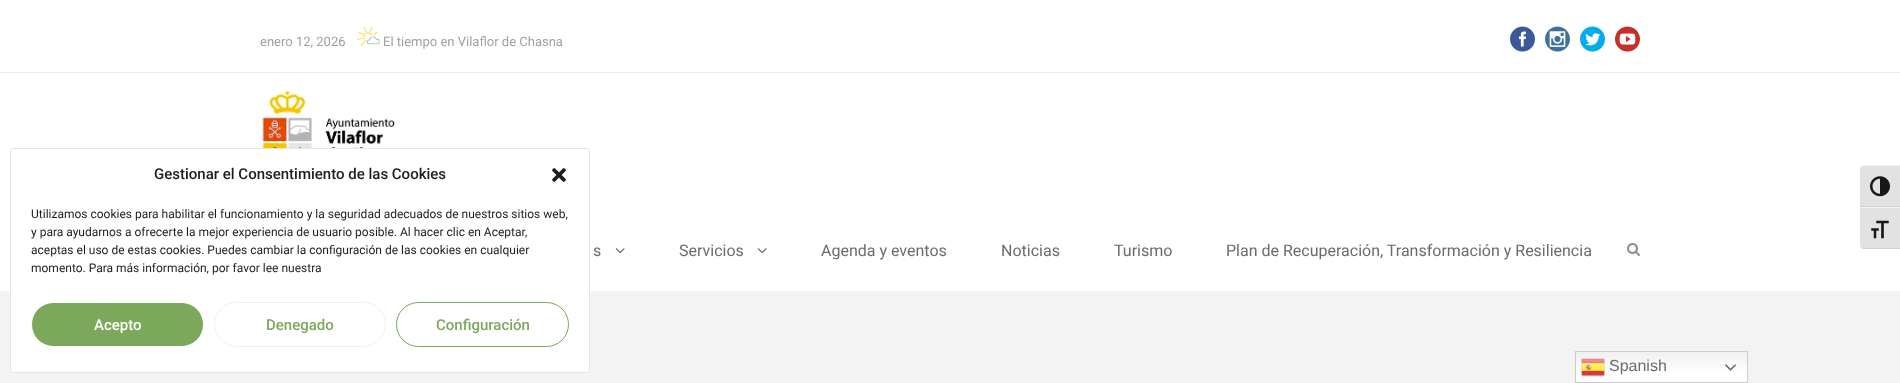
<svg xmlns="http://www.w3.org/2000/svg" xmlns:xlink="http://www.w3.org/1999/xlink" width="1900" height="383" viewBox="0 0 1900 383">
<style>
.cls-1{font:13px Roboto;fill:#a0a0a0}
.cls-2{font:16px Roboto;fill:#6b6b6b}
.cls-3{font:500 15px Roboto;fill:#191e23}
.cls-4{font:12px Roboto;fill:#191e23}
.cls-5{font:500 15px Roboto;fill:#ffffff}
.cls-6{font:500 15px Roboto;fill:#7ba85a}
.cls-7{font:16px Liberation Sans;fill:#6b6b6b}
</style>
<defs>
<linearGradient id="g1" gradientUnits="userSpaceOnUse" x1="1662" y1="351" x2="1662" y2="383"><stop offset="0" stop-color="#efefef"/><stop offset="0.7" stop-color="#ffffff"/></linearGradient>
</defs>
<rect width="100%" height="100%" fill="#ffffff"/>
<rect fill="#ededed" x="0" y="72" width="1900" height="1"/>
<image xlink:href="image0.png" x="357" y="27" width="23" height="19"/>
<image xlink:href="image1.png" x="1510" y="26" width="25" height="26"/>
<image xlink:href="image2.png" x="1545" y="26" width="25" height="26"/>
<image xlink:href="image3.png" x="1580" y="26" width="25" height="26"/>
<image xlink:href="image4.png" x="1615" y="26" width="25" height="26"/>
<image xlink:href="image5.png" x="261" y="90" width="145" height="58"/>
<image xlink:href="image6.png" x="615" y="248" width="10" height="6"/>
<image xlink:href="image6.png" x="757" y="248" width="10" height="6"/>
<image xlink:href="image7.png" x="1627" y="243" width="13" height="13"/>
<rect fill="#f3f3f3" x="0" y="291" width="1900" height="92"/>
<path fill="#e2e2e2" d="M1864 165H1900V207H1860V169C1860 167 1862 165 1864 165Z"/>
<path fill="#f5f5f5" d="M1864 166H1900V165H1864C1862 165 1860 167 1860 169C1860 167 1862 166 1864 166Z"/>
<rect fill="#d2d2d2" x="1860" y="206" width="40" height="1"/>
<image xlink:href="image8.png" x="1870" y="176" width="20" height="21"/>
<path fill="#e2e2e2" d="M1860 207H1900V249H1864C1862 249 1860 247 1860 245Z"/>
<rect fill="#f5f5f5" x="1860" y="207" width="40" height="1"/>
<path fill="#d2d2d2" d="M1900 249V248H1864C1862 248 1860 247 1860 245C1860 247 1862 249 1864 249Z"/>
<image xlink:href="image9.png" x="1871" y="220" width="18" height="19"/>
<rect fill="#ffffff" stroke="#e5e5e5" x="10.5" y="148.5" width="579" height="224" rx="2.5"/>
<image xlink:href="image10.png" x="552" y="168" width="14" height="14"/>
<rect fill="#7ba85a" stroke="#ffffff" x="31.5" y="302.5" width="172" height="44" rx="22"/>
<rect fill="none" stroke="#efefef" x="214.5" y="302.5" width="171" height="44" rx="22"/>
<rect fill="none" stroke="#7ba85a" x="396.5" y="302.5" width="172" height="44" rx="22"/>
<rect fill="url(#g1)" x="1576" y="352" width="171" height="30"/>
<rect fill="none" stroke="#cccccc" x="1575.5" y="351.5" width="172" height="31"/>
<image xlink:href="image11.png" x="1581" y="358" width="24" height="19"/>
<image xlink:href="image12.png" x="1725" y="364" width="11" height="7"/>
<text class="cls-1" x="260" y="46">enero 12, 2026</text>
<text class="cls-1" x="383" y="46">El tiempo en Vilaflor de Chasna</text>
<text class="cls-2" x="593" y="256">s</text>
<text class="cls-2" x="679" y="256">Servicios</text>
<text class="cls-2" x="821" y="256">Agenda y eventos</text>
<text class="cls-2" x="1001" y="256">Noticias</text>
<text class="cls-2" x="1114" y="256">Turismo</text>
<text class="cls-2" x="1226" y="256">Plan de Recuperación, Transformación y Resiliencia</text>
<text class="cls-3" x="154" y="179">Gestionar el Consentimiento de las Cookies</text>
<text class="cls-4"><tspan x="31" y="218">Utilizamos cookies para habilitar el funcionamiento y la seguridad adecuados de nuestros sitios web,</tspan><tspan x="31" y="236">y para ayudarnos a ofrecerte la mejor experiencia de usuario posible. Al hacer clic en Aceptar,</tspan><tspan x="31" y="254">aceptas el uso de estas cookies. Puedes cambiar la configuración de las cookies en cualquier</tspan><tspan x="31" y="272">momento. Para más información, por favor lee nuestra</tspan></text>
<text class="cls-5" x="94" y="330">Acepto</text>
<text class="cls-6" x="266" y="330">Denegado</text>
<text class="cls-6" x="436" y="330">Configuración</text>
<text class="cls-7" x="1609" y="371">Spanish</text>
</svg>
